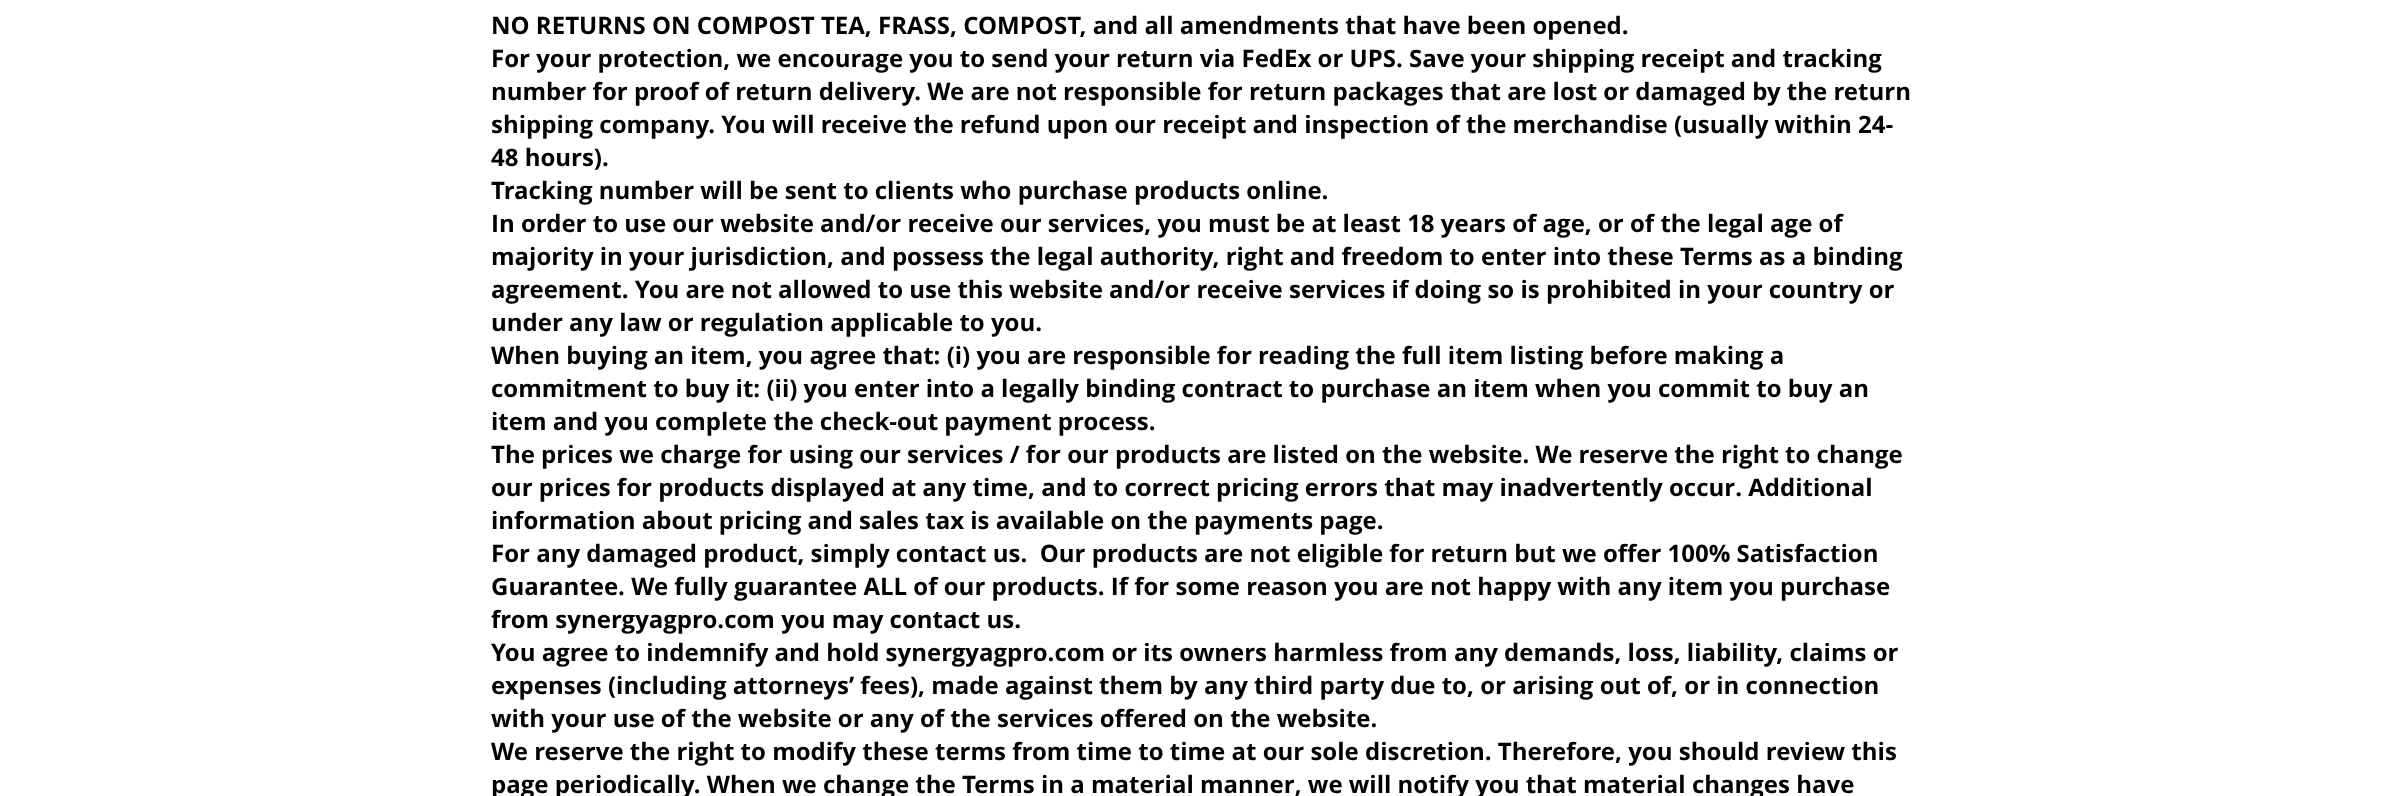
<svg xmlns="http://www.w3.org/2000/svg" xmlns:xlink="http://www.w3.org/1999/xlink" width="2392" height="796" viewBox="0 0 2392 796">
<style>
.cls-1{font:bold 24px Open Sans;fill:#000000}
</style>
<rect width="100%" height="100%" fill="#ffffff"/>
<text class="cls-1" xml:space="preserve"><tspan x="491" y="34">NO RETURNS ON COMPOST TEA, FRASS, COMPOST, and all amendments that have been opened.</tspan><tspan x="491" y="67">For your protection, we encourage you to send your return via FedEx or UPS. Save your shipping receipt and tracking</tspan><tspan x="491" y="100">number for proof of return delivery. We are not responsible for return packages that are lost or damaged by the return</tspan><tspan x="491" y="133">shipping company. You will receive the refund upon our receipt and inspection of the merchandise (usually within 24-</tspan><tspan x="491" y="166">48 hours).</tspan><tspan x="491" y="199">Tracking number will be sent to clients who purchase products online.</tspan><tspan x="491" y="232">In order to use our website and/or receive our services, you must be at least 18 years of age, or of the legal age of</tspan><tspan x="491" y="265">majority in your jurisdiction, and possess the legal authority, right and freedom to enter into these Terms as a binding</tspan><tspan x="491" y="298">agreement. You are not allowed to use this website and/or receive services if doing so is prohibited in your country or</tspan><tspan x="491" y="331">under any law or regulation applicable to you.</tspan><tspan x="491" y="364">When buying an item, you agree that: (i) you are responsible for reading the full item listing before making a</tspan><tspan x="491" y="397">commitment to buy it: (ii) you enter into a legally binding contract to purchase an item when you commit to buy an</tspan><tspan x="491" y="430">item and you complete the check-out payment process.</tspan><tspan x="491" y="463">The prices we charge for using our services / for our products are listed on the website. We reserve the right to change</tspan><tspan x="491" y="496">our prices for products displayed at any time, and to correct pricing errors that may inadvertently occur. Additional</tspan><tspan x="491" y="529">information about pricing and sales tax is available on the payments page.</tspan><tspan x="491" y="562">For any damaged product, simply contact us.  Our products are not eligible for return but we offer 100% Satisfaction</tspan><tspan x="491" y="595">Guarantee. We fully guarantee ALL of our products. If for some reason you are not happy with any item you purchase</tspan><tspan x="491" y="628">from synergyagpro.com you may contact us.</tspan><tspan x="491" y="661">You agree to indemnify and hold synergyagpro.com or its owners harmless from any demands, loss, liability, claims or</tspan><tspan x="491" y="694">expenses (including attorneys’ fees), made against them by any third party due to, or arising out of, or in connection</tspan><tspan x="491" y="727">with your use of the website or any of the services offered on the website.</tspan><tspan x="491" y="760">We reserve the right to modify these terms from time to time at our sole discretion. Therefore, you should review this</tspan><tspan x="491" y="793">page periodically. When we change the Terms in a material manner, we will notify you that material changes have</tspan></text>
</svg>
